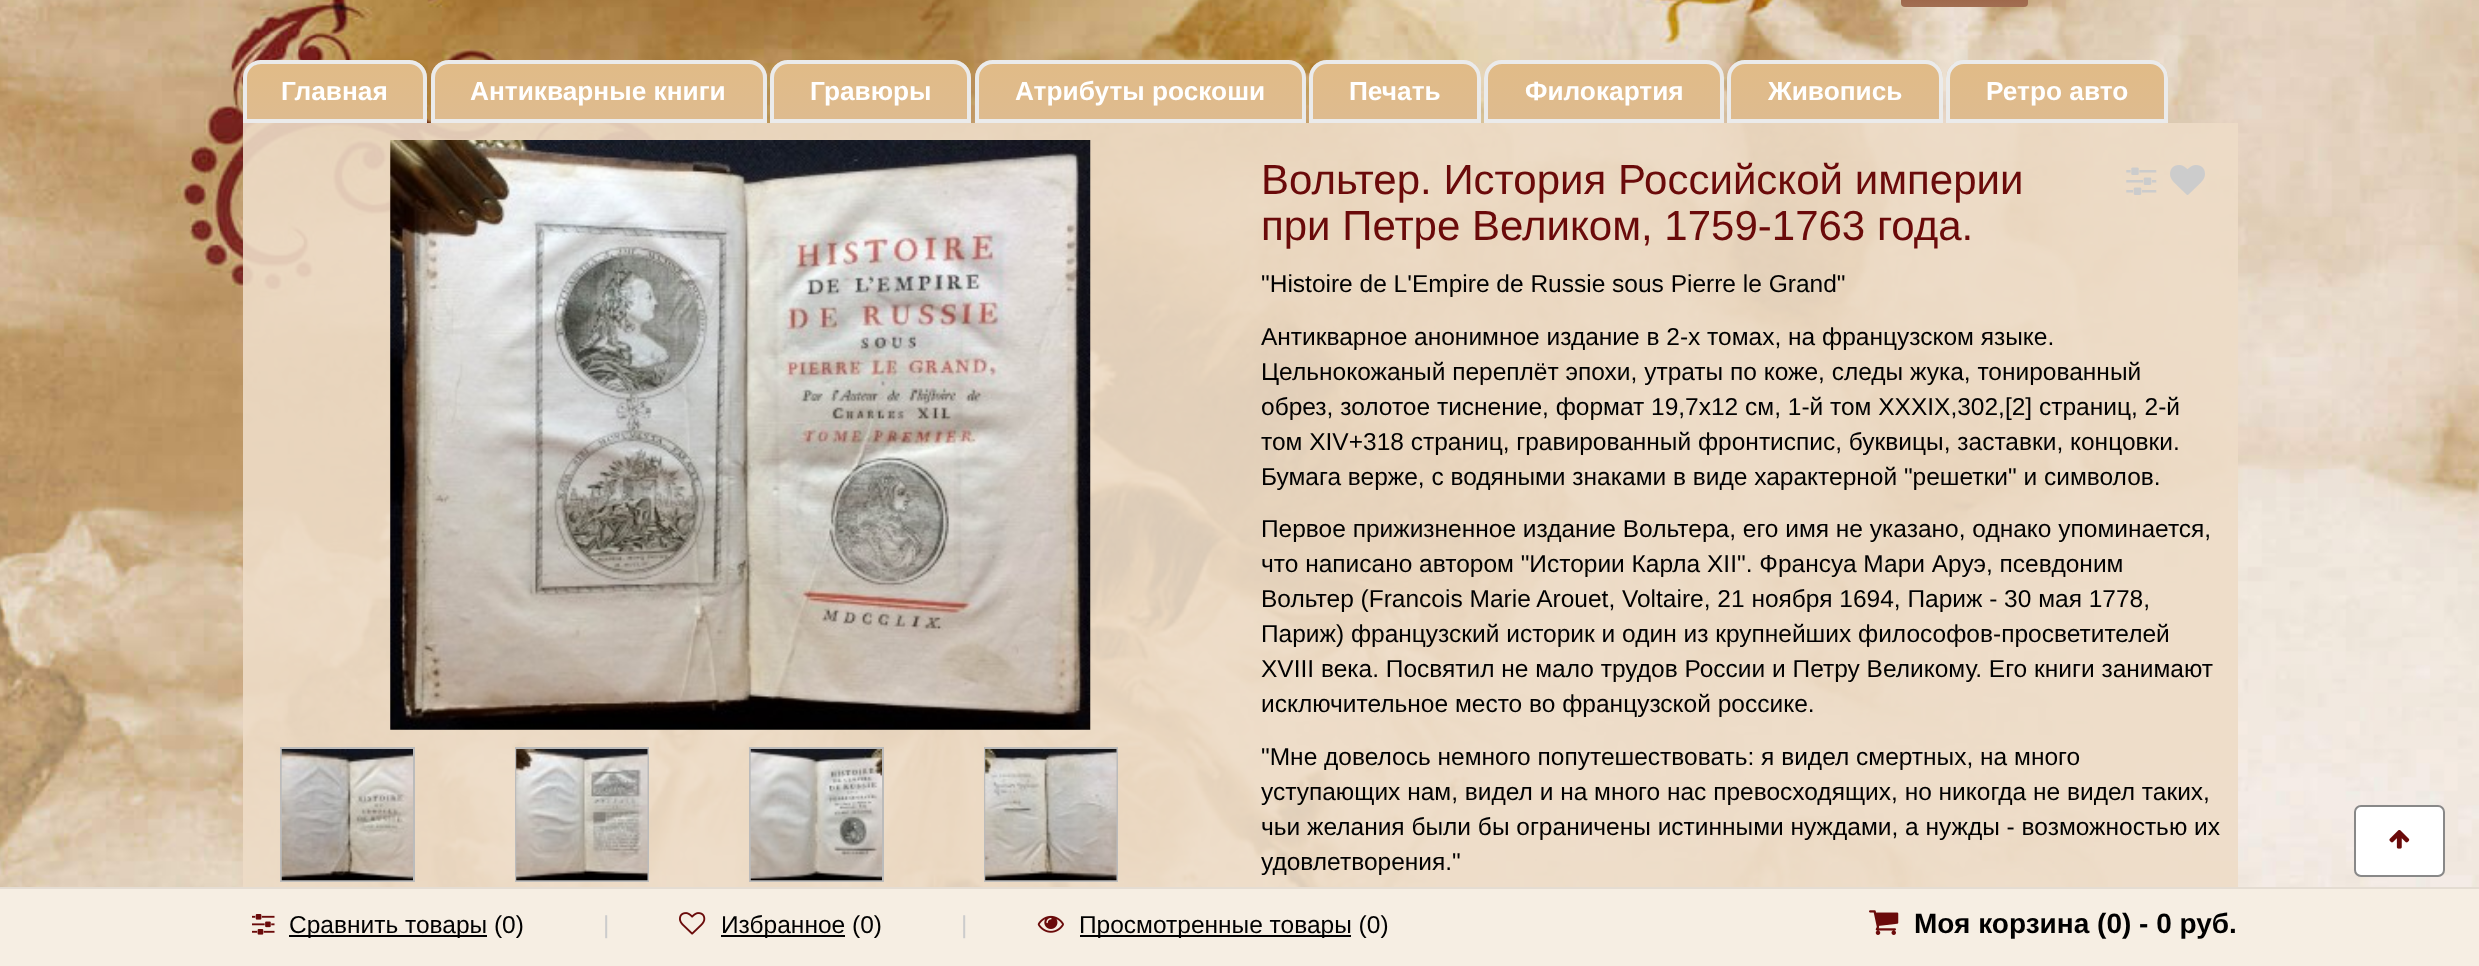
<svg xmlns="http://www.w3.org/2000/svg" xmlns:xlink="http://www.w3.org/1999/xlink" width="2479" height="966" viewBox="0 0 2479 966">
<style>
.cls-1{font:bold 26.25px Liberation Sans;fill:#ffffff}
.cls-2{font:42px Liberation Sans;fill:#6a0a0a}
.cls-3{font:24.5px Liberation Sans;fill:#000000}
.cls-4{font:24.5px Liberation Sans;fill:#cccccc}
.cls-5{font:bold 28px Liberation Sans;fill:#000000}
</style>
<defs>
<linearGradient id="g1" gradientUnits="userSpaceOnUse" x1="1964" y1="-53" x2="1964" y2="7"><stop offset="0" stop-color="#884621"/><stop offset="1" stop-color="#a26e52"/></linearGradient>
<clipPath id="clip1"><path d="M261 60H409C419 60 427 68 427 78V123H243V78C243 68 251 60 261 60Z"/></clipPath>
<linearGradient id="g2" gradientUnits="userSpaceOnUse" x1="335" y1="63" x2="335" y2="119"><stop offset="0" stop-color="#e1bb87"/><stop offset="1" stop-color="#debb8f"/></linearGradient>
<clipPath id="clip2"><path d="M449 60H749C759 60 767 68 767 78V123H431V78C431 68 439 60 449 60Z"/></clipPath>
<linearGradient id="g3" gradientUnits="userSpaceOnUse" x1="599" y1="63" x2="599" y2="119"><stop offset="0" stop-color="#e1bb87"/><stop offset="1" stop-color="#debb8f"/></linearGradient>
<clipPath id="clip3"><path d="M788 60H953C963 60 971 68 971 78V123H770V78C770 68 778 60 788 60Z"/></clipPath>
<linearGradient id="g4" gradientUnits="userSpaceOnUse" x1="871" y1="63" x2="871" y2="119"><stop offset="0" stop-color="#e1bb87"/><stop offset="1" stop-color="#debb8f"/></linearGradient>
<clipPath id="clip4"><path d="M993 60H1288C1298 60 1306 68 1306 78V123H975V78C975 68 983 60 993 60Z"/></clipPath>
<linearGradient id="g5" gradientUnits="userSpaceOnUse" x1="1140" y1="63" x2="1140" y2="119"><stop offset="0" stop-color="#e1bb87"/><stop offset="1" stop-color="#debb8f"/></linearGradient>
<clipPath id="clip5"><path d="M1327 60H1463C1473 60 1481 68 1481 78V123H1309V78C1309 68 1317 60 1327 60Z"/></clipPath>
<linearGradient id="g6" gradientUnits="userSpaceOnUse" x1="1395" y1="63" x2="1395" y2="119"><stop offset="0" stop-color="#e1bb87"/><stop offset="1" stop-color="#debb8f"/></linearGradient>
<clipPath id="clip6"><path d="M1502 60H1706C1716 60 1724 68 1724 78V123H1484V78C1484 68 1492 60 1502 60Z"/></clipPath>
<linearGradient id="g7" gradientUnits="userSpaceOnUse" x1="1604" y1="63" x2="1604" y2="119"><stop offset="0" stop-color="#e1bb87"/><stop offset="1" stop-color="#debb8f"/></linearGradient>
<clipPath id="clip7"><path d="M1745 60H1925C1935 60 1943 68 1943 78V123H1727V78C1727 68 1735 60 1745 60Z"/></clipPath>
<linearGradient id="g8" gradientUnits="userSpaceOnUse" x1="1835" y1="63" x2="1835" y2="119"><stop offset="0" stop-color="#e1bb87"/><stop offset="1" stop-color="#debb8f"/></linearGradient>
<clipPath id="clip8"><path d="M1964 60H2150C2160 60 2168 68 2168 78V123H1946V78C1946 68 1954 60 1964 60Z"/></clipPath>
<linearGradient id="g9" gradientUnits="userSpaceOnUse" x1="2057" y1="63" x2="2057" y2="119"><stop offset="0" stop-color="#e1bb87"/><stop offset="1" stop-color="#debb8f"/></linearGradient>
</defs>
<rect width="100%" height="100%" fill="#ffffff"/>
<image xlink:href="image0.png" x="0" y="0" width="2479" height="887"/>
<rect fill="url(#g1)" x="1901" y="-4" width="127" height="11" rx="4"/>
<g clip-path="url(#clip1)">
<rect fill="url(#g2)" x="243" y="63" width="184" height="56"/>
</g>
<path fill="none" stroke="#ebebeb" stroke-width="4" d="M261 62H409C418 62 425 69 425 78V121H245V78C245 69 252 62 261 62Z"/>
<g clip-path="url(#clip2)">
<rect fill="url(#g3)" x="431" y="63" width="336" height="56"/>
</g>
<path fill="none" stroke="#ebebeb" stroke-width="4" d="M449 62H749C758 62 765 69 765 78V121H433V78C433 69 440 62 449 62Z"/>
<g clip-path="url(#clip3)">
<rect fill="url(#g4)" x="770" y="63" width="201" height="56"/>
</g>
<path fill="none" stroke="#ebebeb" stroke-width="4" d="M788 62H953C962 62 969 69 969 78V121H772V78C772 69 779 62 788 62Z"/>
<g clip-path="url(#clip4)">
<rect fill="url(#g5)" x="975" y="63" width="331" height="56"/>
</g>
<path fill="none" stroke="#ebebeb" stroke-width="4" d="M993 62H1288C1297 62 1304 69 1304 78V121H977V78C977 69 984 62 993 62Z"/>
<g clip-path="url(#clip5)">
<rect fill="url(#g6)" x="1309" y="63" width="172" height="56"/>
</g>
<path fill="none" stroke="#ebebeb" stroke-width="4" d="M1327 62H1463C1472 62 1479 69 1479 78V121H1311V78C1311 69 1318 62 1327 62Z"/>
<g clip-path="url(#clip6)">
<rect fill="url(#g7)" x="1484" y="63" width="240" height="56"/>
</g>
<path fill="none" stroke="#ebebeb" stroke-width="4" d="M1502 62H1706C1715 62 1722 69 1722 78V121H1486V78C1486 69 1493 62 1502 62Z"/>
<g clip-path="url(#clip7)">
<rect fill="url(#g8)" x="1727" y="63" width="216" height="56"/>
</g>
<path fill="none" stroke="#ebebeb" stroke-width="4" d="M1745 62H1925C1934 62 1941 69 1941 78V121H1729V78C1729 69 1736 62 1745 62Z"/>
<g clip-path="url(#clip8)">
<rect fill="url(#g9)" x="1946" y="63" width="222" height="56"/>
</g>
<path fill="none" stroke="#ebebeb" stroke-width="4" d="M1964 62H2150C2159 62 2166 69 2166 78V121H1948V78C1948 69 1955 62 1964 62Z"/>
<rect fill="#eddbc6" fill-opacity="0.9" x="243" y="123" width="1995" height="764"/>
<image xlink:href="image1.png" x="390" y="140" width="701" height="590"/>
<rect fill="none" stroke="#bbbbbb" stroke-width="2" x="281" y="748" width="133" height="133"/>
<image xlink:href="image2.png" x="281" y="749" width="132" height="132"/>
<rect fill="none" stroke="#bbbbbb" stroke-width="2" x="516" y="748" width="132" height="133"/>
<image xlink:href="image3.png" x="516" y="749" width="132" height="132"/>
<rect fill="none" stroke="#bbbbbb" stroke-width="2" x="750" y="748" width="133" height="133"/>
<image xlink:href="image4.png" x="750" y="749" width="132" height="132"/>
<rect fill="none" stroke="#bbbbbb" stroke-width="2" x="985" y="748" width="132" height="133"/>
<image xlink:href="image5.png" x="985" y="749" width="132" height="132"/>
<image xlink:href="image6.png" x="2126" y="167" width="31" height="28"/>
<image xlink:href="image7.png" x="2170" y="165" width="35" height="30"/>
<rect fill="#ffffff" stroke="#888888" stroke-width="2" x="2355" y="806" width="89" height="70" rx="6"/>
<image xlink:href="image8.png" x="2389" y="830" width="21" height="19"/>
<rect fill="#f6eee3" x="0" y="889" width="2479" height="77"/>
<rect fill="#e4dcd2" x="0" y="887" width="2479" height="2"/>
<image xlink:href="image9.png" x="252" y="914" width="23" height="21"/>
<rect fill="#000000" x="289" y="935" width="198" height="2"/>
<image xlink:href="image10.png" x="679" y="912" width="27" height="23"/>
<rect fill="#000000" x="721" y="935" width="124" height="2"/>
<image xlink:href="image11.png" x="1037" y="915" width="27" height="18"/>
<rect fill="#000000" x="1080" y="935" width="271" height="2"/>
<image xlink:href="image12.png" x="1869" y="910" width="30" height="25"/>
<text class="cls-1" x="281" y="100">Главная</text>
<text class="cls-1" x="470" y="100">Антикварные книги</text>
<text class="cls-1" x="810" y="100">Гравюры</text>
<text class="cls-1" x="1015" y="100">Атрибуты роскоши</text>
<text class="cls-1" x="1349" y="100">Печать</text>
<text class="cls-1" x="1525" y="100">Филокартия</text>
<text class="cls-1" x="1768" y="100">Живопись</text>
<text class="cls-1" x="1986" y="100">Ретро авто</text>
<text class="cls-2"><tspan x="1261" y="194">Вольтер. История Российской империи</tspan><tspan x="1261" y="240">при Петре Великом, 1759-1763 года.</tspan></text>
<text class="cls-3" x="1261" y="292">"Histoire de L'Empire de Russie sous Pierre le Grand"</text>
<text class="cls-3"><tspan x="1261" y="345">Антикварное анонимное издание в 2-х томах, на французском языке.</tspan><tspan x="1261" y="380">Цельнокожаный переплёт эпохи, утраты по коже, следы жука, тонированный</tspan><tspan x="1261" y="415">обрез, золотое тиснение, формат 19,7х12 см, 1-й том XXXIX,302,[2] страниц, 2-й</tspan><tspan x="1261" y="450">том XIV+318 страниц, гравированный фронтиспис, буквицы, заставки, концовки.</tspan><tspan x="1261" y="485">Бумага верже, с водяными знаками в виде характерной "решетки" и символов.</tspan></text>
<text class="cls-3"><tspan x="1261" y="537">Первое прижизненное издание Вольтера, его имя не указано, однако упоминается,</tspan><tspan x="1261" y="572">что написано автором "Истории Карла XII". Франсуа Мари Аруэ, псевдоним</tspan><tspan x="1261" y="607">Вольтер (Francois Marie Arouet, Voltaire, 21 ноября 1694, Париж - 30 мая 1778,</tspan><tspan x="1261" y="642">Париж) французский историк и один из крупнейших философов-просветителей</tspan><tspan x="1261" y="677">XVIII века. Посвятил не мало трудов России и Петру Великому. Его книги занимают</tspan><tspan x="1261" y="712">исключительное место во французской россике.</tspan></text>
<text class="cls-3"><tspan x="1261" y="765">"Мне довелось немного попутешествовать: я видел смертных, на много</tspan><tspan x="1261" y="800">уступающих нам, видел и на много нас превосходящих, но никогда не видел таких,</tspan><tspan x="1261" y="835">чьи желания были бы ограничены истинными нуждами, а нужды - возможностью их</tspan><tspan x="1261" y="870">удовлетворения."</tspan></text>
<text class="cls-3" x="289" y="933">Сравнить товары (0)</text>
<text class="cls-4" x="603" y="933">|</text>
<text class="cls-3" x="721" y="933">Избранное (0)</text>
<text class="cls-4" x="961" y="933">|</text>
<text class="cls-3" x="1079" y="933">Просмотренные товары (0)</text>
<text class="cls-5" x="1914" y="933">Моя корзина (0) - 0 руб.</text>
</svg>
